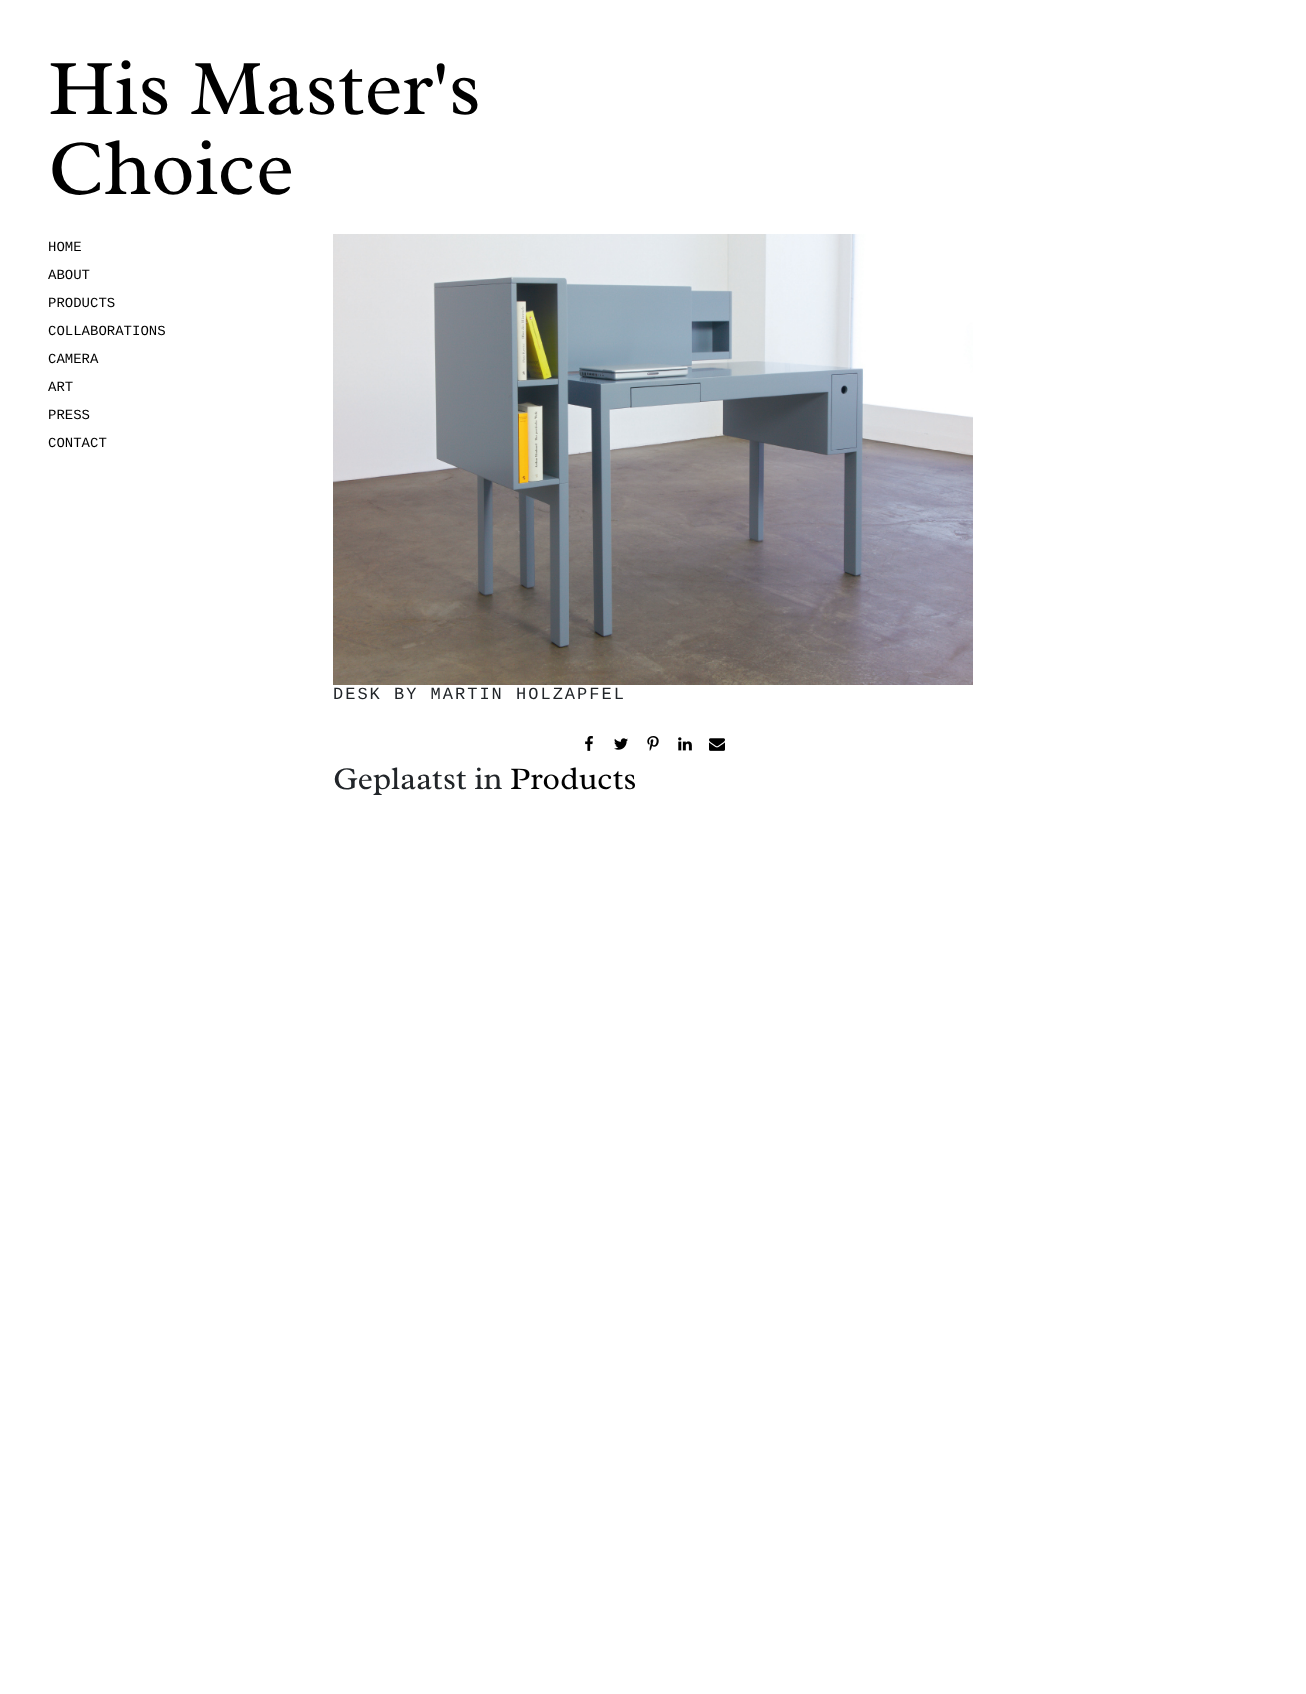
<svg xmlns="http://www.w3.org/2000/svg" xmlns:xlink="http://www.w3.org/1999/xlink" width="1306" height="1694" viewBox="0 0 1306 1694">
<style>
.cls-1{font:80px Radley;fill:#000000}
.cls-2{font:14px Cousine;fill:#000000}
.cls-3{font:17px Cousine;letter-spacing:2px;fill:#212529}
.cls-4{font:32px Radley;fill:#212529}
.cls-5{font:32px Radley;fill:#000000}
</style>
<rect width="100%" height="100%" fill="#ffffff"/>
<image xlink:href="image0.png" x="333" y="234" width="640" height="451"/>
<image xlink:href="image1.png" x="585" y="736" width="8" height="15"/>
<image xlink:href="image2.png" x="614" y="738" width="14" height="12"/>
<image xlink:href="image3.png" x="647" y="736" width="12" height="15"/>
<image xlink:href="image4.png" x="678" y="737" width="14" height="14"/>
<image xlink:href="image5.png" x="709" y="738" width="16" height="13"/>
<text class="cls-1"><tspan x="48" y="114">His Master's</tspan><tspan x="48" y="194">Choice</tspan></text>
<text class="cls-2" x="48" y="251">HOME</text>
<text class="cls-2" x="48" y="279">ABOUT</text>
<text class="cls-2" x="48" y="307">PRODUCTS</text>
<text class="cls-2" x="48" y="335">COLLABORATIONS</text>
<text class="cls-2" x="48" y="363">CAMERA</text>
<text class="cls-2" x="48" y="391">ART</text>
<text class="cls-2" x="48" y="419">PRESS</text>
<text class="cls-2" x="48" y="447">CONTACT</text>
<text class="cls-3" x="333" y="699">DESK BY MARTIN HOLZAPFEL</text>
<text class="cls-4" x="333" y="789">Geplaatst in</text>
<text class="cls-5" x="510" y="789">Products</text>
</svg>
